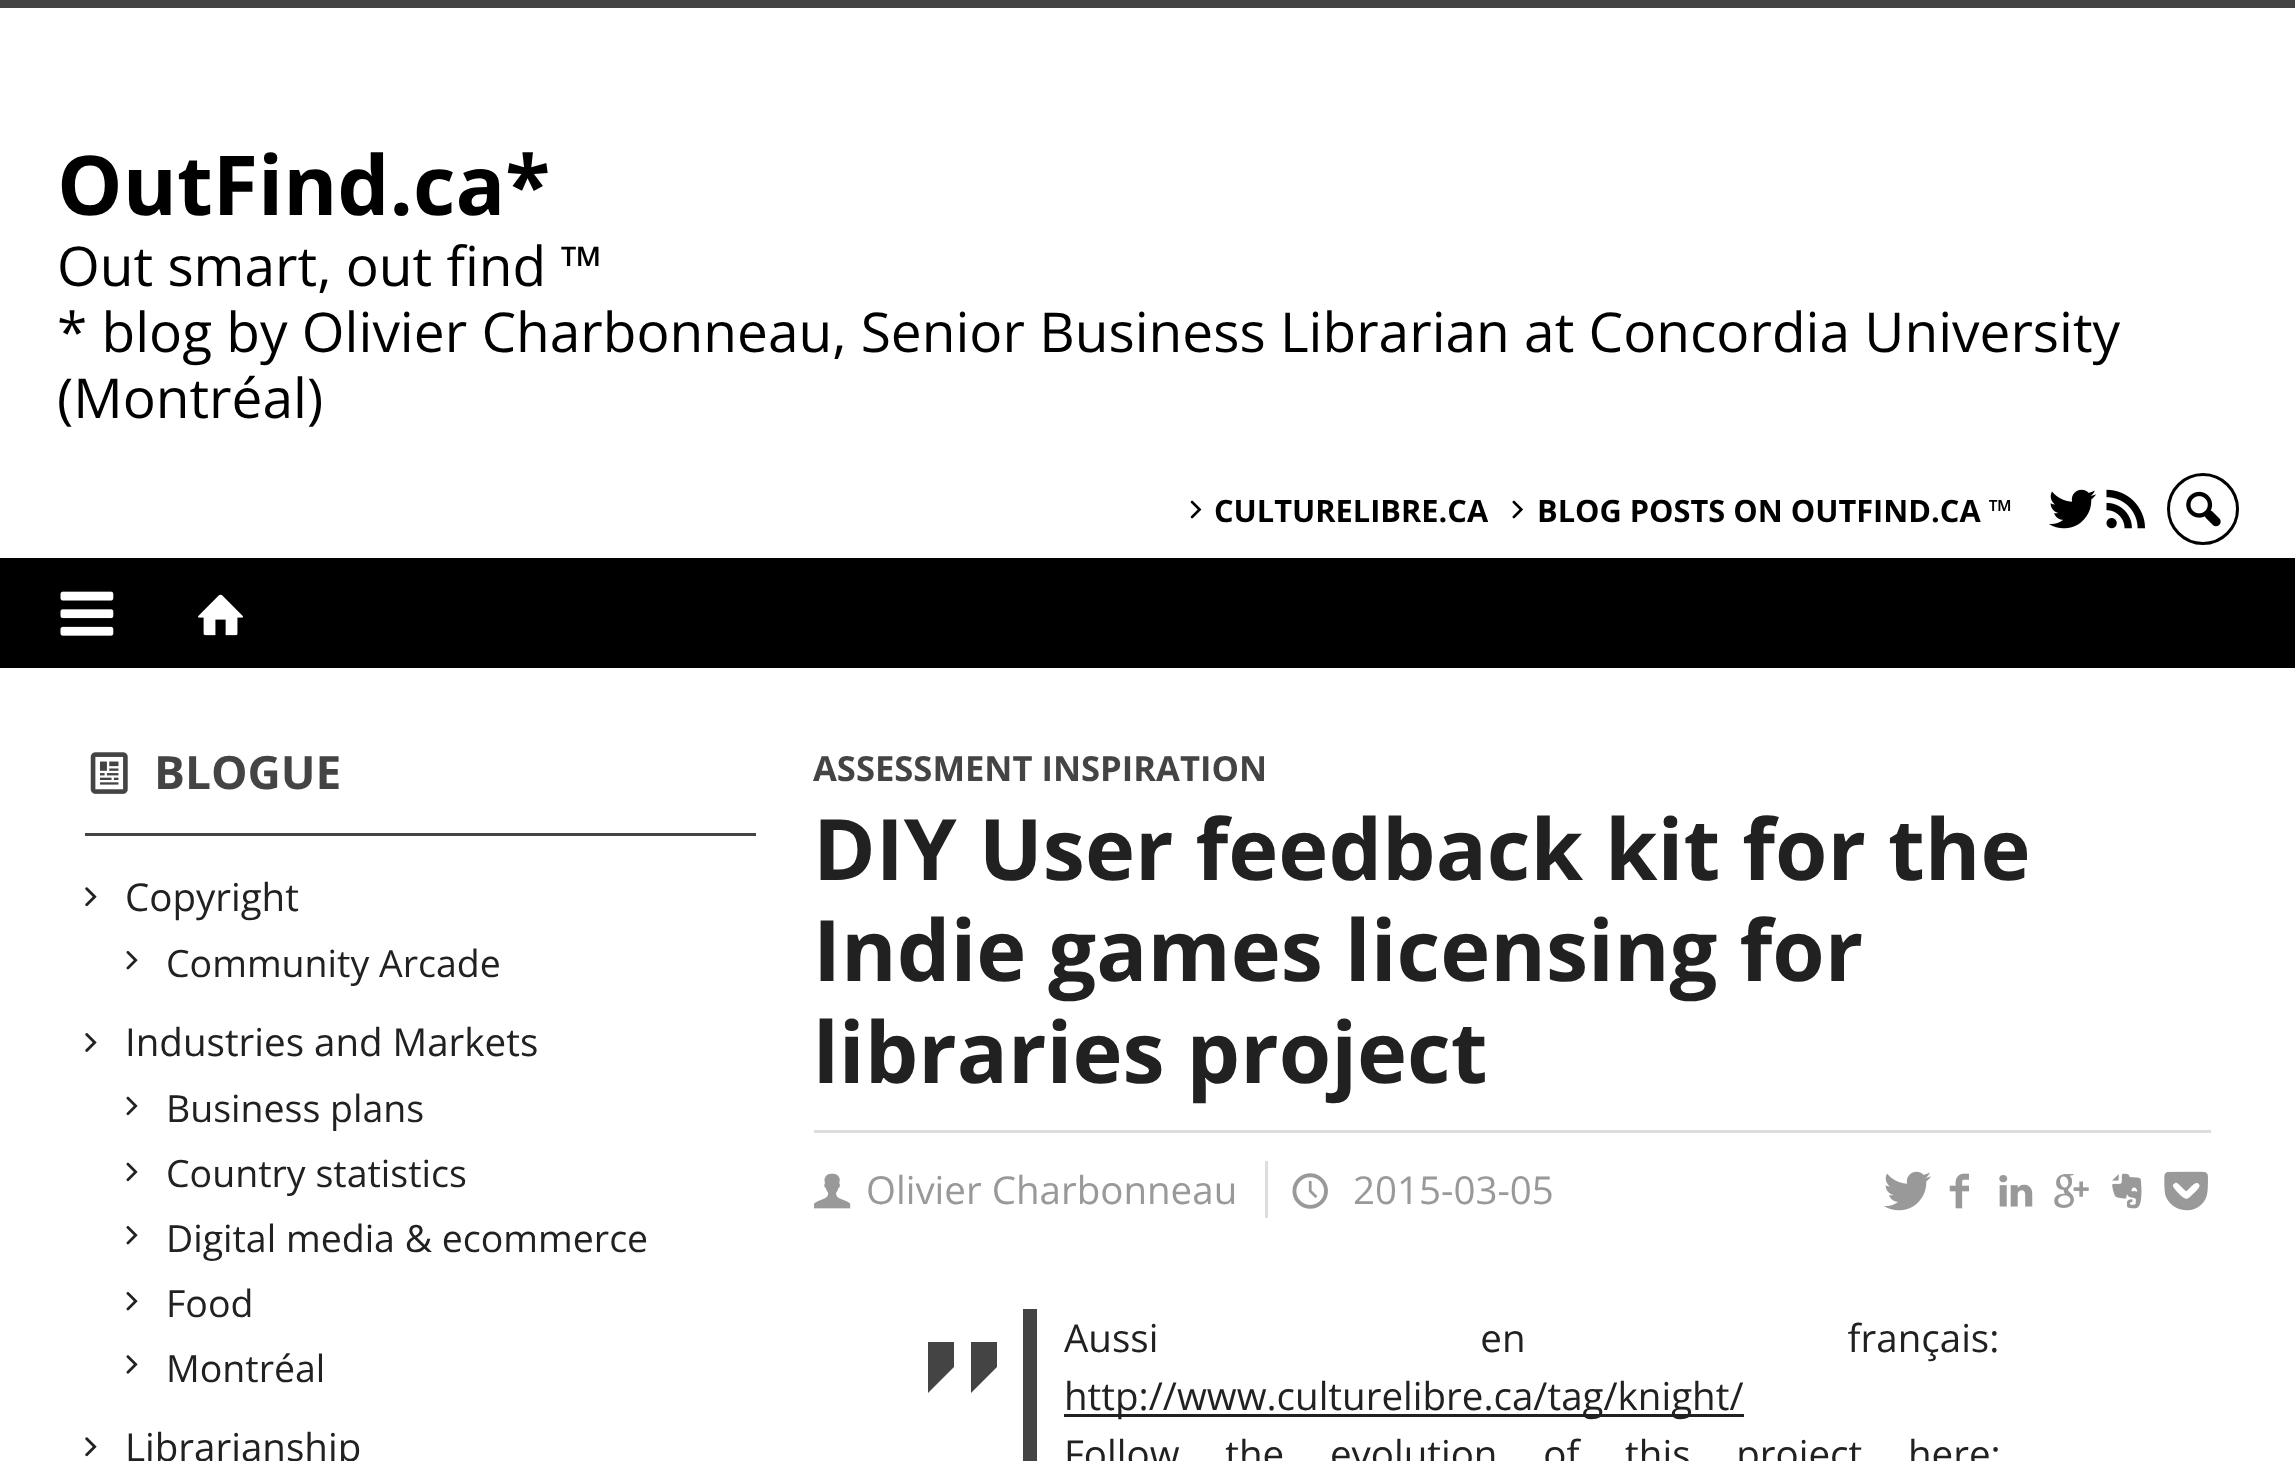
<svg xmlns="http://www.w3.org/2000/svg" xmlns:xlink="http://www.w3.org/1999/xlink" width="2295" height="1461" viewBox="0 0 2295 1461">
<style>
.cls-1{font:bold 82.5px Open Sans;fill:#000000}
.cls-2{font:55px Open Sans;fill:#000000}
.cls-3{font:bold 30.75px Open Sans;fill:#000000}
.cls-4{font:bold 46px Open Sans;fill:#444444}
.cls-5{font:38.5px Open Sans;fill:#212121}
.cls-6{font:37.5px Open Sans;fill:#212121}
.cls-7{font:bold 34.6px Open Sans;fill:#444444}
.cls-8{font:bold 84.75px Open Sans;fill:#212121}
.cls-9{font:38.5px Open Sans;fill:#999999}
</style>
<rect width="100%" height="100%" fill="#ffffff"/>
<rect fill="#444444" x="0" y="0" width="2295" height="8"/>
<image xlink:href="image0.png" x="1190" y="500" width="12" height="19"/>
<image xlink:href="image1.png" x="1512" y="500" width="12" height="19"/>
<image xlink:href="image2.png" x="2049" y="489" width="47" height="40"/>
<image xlink:href="image3.png" x="2106" y="489" width="39" height="40"/>
<circle fill="none" stroke="#000000" stroke-width="3" cx="2203" cy="509" r="34.5"/>
<image xlink:href="image4.png" x="2186" y="491" width="35" height="36"/>
<rect fill="#000000" x="0" y="558" width="2295" height="110"/>
<image xlink:href="image5.png" x="60" y="591" width="54" height="45"/>
<image xlink:href="image6.png" x="198" y="594" width="45" height="42"/>
<rect fill="#444444" x="85" y="833" width="671" height="3"/>
<image xlink:href="image7.png" x="90" y="752" width="38" height="42"/>
<image xlink:href="image8.png" x="85" y="887" width="12" height="20"/>
<image xlink:href="image9.png" x="126" y="951" width="12" height="19"/>
<image xlink:href="image10.png" x="85" y="1033" width="12" height="19"/>
<image xlink:href="image11.png" x="126" y="1096" width="12" height="20"/>
<image xlink:href="image11.png" x="126" y="1162" width="12" height="20"/>
<image xlink:href="image9.png" x="126" y="1226" width="12" height="19"/>
<image xlink:href="image9.png" x="126" y="1292" width="12" height="19"/>
<image xlink:href="image12.png" x="126" y="1355" width="12" height="19"/>
<image xlink:href="image8.png" x="85" y="1437" width="12" height="20"/>
<rect fill="#dddddd" x="814" y="1130" width="1397" height="3"/>
<rect fill="#dddddd" x="1265" y="1161" width="3" height="57"/>
<image xlink:href="image13.png" x="814" y="1173" width="37" height="36"/>
<image xlink:href="image14.png" x="1292" y="1173" width="36" height="36"/>
<image xlink:href="image15.png" x="1884" y="1171" width="47" height="40"/>
<image xlink:href="image16.png" x="1949" y="1173" width="20" height="36"/>
<image xlink:href="image17.png" x="1999" y="1175" width="34" height="32"/>
<image xlink:href="image18.png" x="2054" y="1174" width="35" height="34"/>
<image xlink:href="image19.png" x="2112" y="1173" width="30" height="36"/>
<image xlink:href="image20.png" x="2164" y="1171" width="44" height="40"/>
<rect fill="#444444" x="1023" y="1309" width="14" height="152"/>
<path fill="#444444" d="M928 1342H954V1367L928 1393ZM971 1342H997V1367L971 1393Z"/>
<rect fill="#212121" x="1064" y="1414" width="680" height="3"/>
<text class="cls-1" x="57" y="215">OutFind.ca*</text>
<text class="cls-2"><tspan x="57" y="286">Out smart, out find ™</tspan><tspan x="57" y="352">* blog by Olivier Charbonneau, Senior Business Librarian at Concordia University</tspan><tspan x="57" y="418">(Montréal)</tspan></text>
<text class="cls-3" x="1214" y="522">CULTURELIBRE.CA</text>
<text class="cls-3" x="1537" y="522">BLOG POSTS ON OUTFIND.CA ™</text>
<text class="cls-4" x="154" y="789">BLOGUE</text>
<text class="cls-5" x="125" y="911">Copyright</text>
<text class="cls-6" x="166" y="977">Community Arcade</text>
<text class="cls-5" x="125" y="1056">Industries and Markets</text>
<text class="cls-6"><tspan x="166" y="1122">Business plans</tspan><tspan x="166" y="1187">Country statistics</tspan><tspan x="166" y="1252">Digital media &amp; ecommerce</tspan><tspan x="166" y="1317">Food</tspan><tspan x="166" y="1382">Montréal</tspan></text>
<text class="cls-5" x="125" y="1461">Librarianship</text>
<text class="cls-7" x="813" y="781">ASSESSMENT INSPIRATION</text>
<text class="cls-8"><tspan x="813" y="880">DIY User feedback kit for the</tspan><tspan x="813" y="981">Indie games licensing for</tspan><tspan x="813" y="1083">libraries project</tspan></text>
<text class="cls-9" x="866" y="1204">Olivier Charbonneau</text>
<text class="cls-9" x="1353" y="1204">2015-03-05</text>
<text class="cls-5"><tspan x="1064" y="1352" word-spacing="312">Aussi en français:</tspan><tspan x="1064" y="1410">http://www.culturelibre.ca/tag/knight/</tspan><tspan x="1064" y="1468" word-spacing="35.75">Follow the evolution of this project here:</tspan></text>
</svg>
